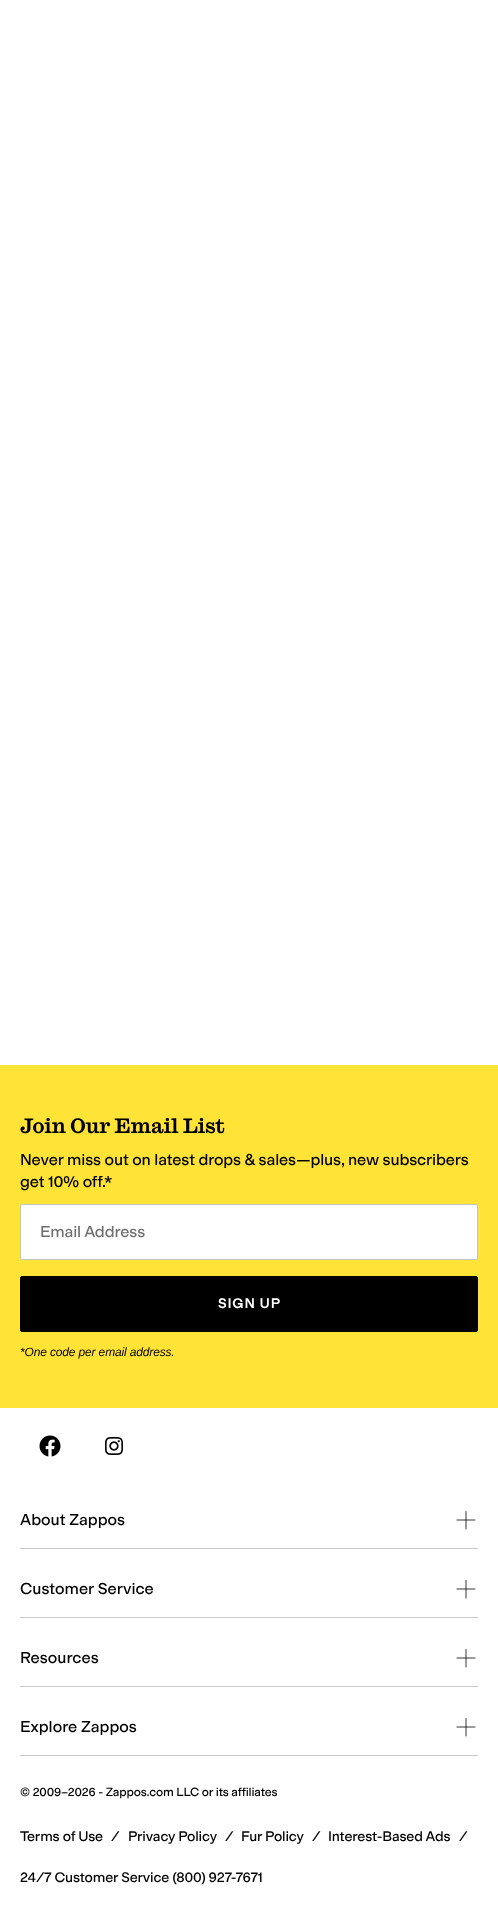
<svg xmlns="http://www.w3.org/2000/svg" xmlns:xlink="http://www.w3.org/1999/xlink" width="498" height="1910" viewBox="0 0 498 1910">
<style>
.cls-1{font:16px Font;letter-spacing:-0.15px;fill:#000000}
.cls-2{font:16px Font;letter-spacing:-0.15px;fill:#707070}
.cls-3{font:500 14px Font;letter-spacing:0.75px;fill:#ffffff}
.cls-4{font:italic 12px Liberation Sans;letter-spacing:-0.15px;fill:#000000}
.cls-5{font:16px Font;fill:#000000}
.cls-6{font:12px Font;letter-spacing:-0.15px;fill:#000000}
.cls-7{font:14px Font;letter-spacing:-0.15px;fill:#000000}
</style>
<rect width="100%" height="100%" fill="#ffffff"/>
<rect fill="#ffe337" x="0" y="1065" width="498" height="343"/>
<image xlink:href="image0.png" x="20" y="1117" width="205" height="17"/>
<rect fill="#ffffff" stroke="#c5c5c5" x="20.5" y="1204.5" width="457" height="55" rx="1.5"/>
<rect fill="#000000" stroke="#000000" x="20.5" y="1276.5" width="457" height="55" rx="1.5"/>
<image xlink:href="image1.png" x="39" y="1435" width="22" height="22"/>
<image xlink:href="image2.png" x="105" y="1437" width="18" height="18"/>
<rect fill="#c9c9c9" x="20" y="1548" width="458" height="1"/>
<path fill="none" stroke="#030303" stroke-width="0.8" stroke-linecap="round" stroke-linejoin="round" d="M466 1529V1511.5M475 1520H457"/>
<rect fill="#c9c9c9" x="20" y="1617" width="458" height="1"/>
<path fill="none" stroke="#030303" stroke-width="0.8" stroke-linecap="round" stroke-linejoin="round" d="M466 1598V1580.5M475 1589H457"/>
<rect fill="#c9c9c9" x="20" y="1686" width="458" height="1"/>
<path fill="none" stroke="#030303" stroke-width="0.8" stroke-linecap="round" stroke-linejoin="round" d="M466 1667V1649.5M475 1658H457"/>
<rect fill="#c9c9c9" x="20" y="1755" width="458" height="1"/>
<path fill="none" stroke="#030303" stroke-width="0.8" stroke-linecap="round" stroke-linejoin="round" d="M466 1736V1718.5M475 1727H457"/>
<text class="cls-1"><tspan x="20" y="1165">Never miss out on latest drops &amp; sales—plus, new subscribers</tspan><tspan x="20" y="1187">get 10% off.*</tspan></text>
<text class="cls-2" x="40" y="1237">Email Address</text>
<text class="cls-3" x="218" y="1308">SIGN UP</text>
<text class="cls-4" x="20" y="1356">*One code per email address.</text>
<text class="cls-5" x="20" y="1525">About Zappos</text>
<text class="cls-5" x="20" y="1594">Customer Service</text>
<text class="cls-5" x="20" y="1663">Resources</text>
<text class="cls-5" x="20" y="1732">Explore Zappos</text>
<text class="cls-6" x="20" y="1796">© 2009–2026 - Zappos.com LLC or its affiliates</text>
<text class="cls-7" x="20" y="1841">Terms of Use</text>
<text class="cls-7" x="111" y="1841">/</text>
<text class="cls-7" x="128" y="1841">Privacy Policy</text>
<text class="cls-7" x="225" y="1841">/</text>
<text class="cls-7" x="241" y="1841">Fur Policy</text>
<text class="cls-7" x="312" y="1841">/</text>
<text class="cls-7" x="328" y="1841">Interest-Based Ads</text>
<text class="cls-7" x="459" y="1841">/</text>
<text class="cls-7" x="20" y="1882">24/7 Customer Service (800) 927-7671</text>
</svg>
